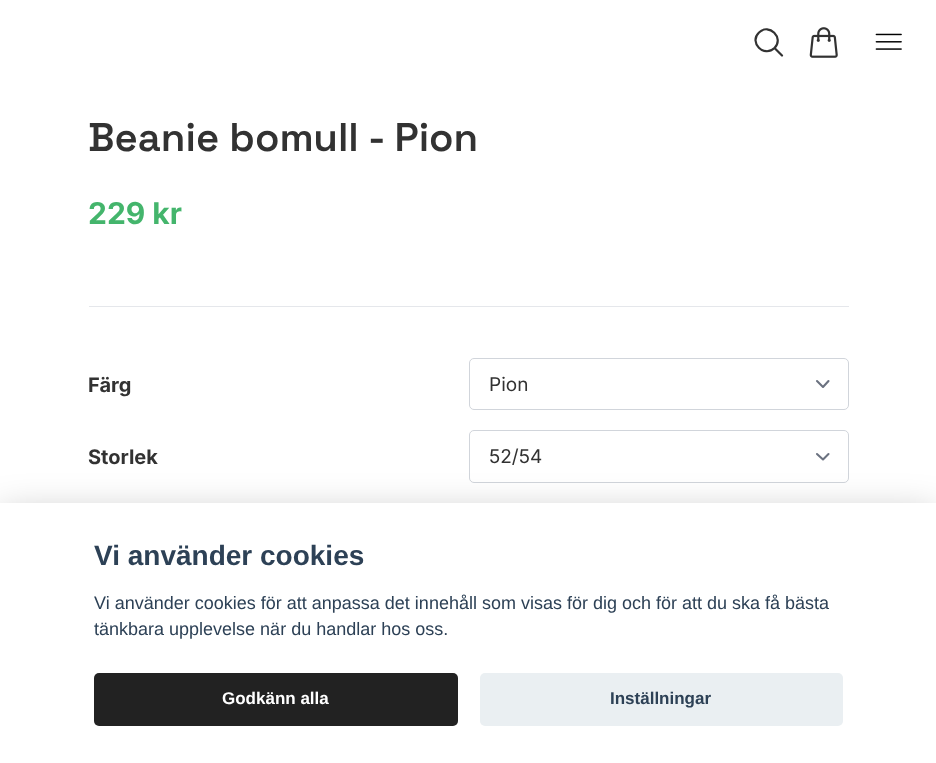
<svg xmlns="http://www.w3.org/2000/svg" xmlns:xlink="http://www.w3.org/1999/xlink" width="936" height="763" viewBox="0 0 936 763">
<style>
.cls-1{font:600 40px Space Grotesk;fill:#323232}
.cls-2{font:bold 30px Inter;fill:#44b56c}
.cls-3{font:bold 20px Inter;fill:#323232}
.cls-4{font:19px Inter;fill:#323232}
.cls-5{font:bold 28px Liberation Sans;fill:#2d4156}
.cls-6{font:18px Liberation Sans;fill:#2d4156}
.cls-7{font:bold 17px Liberation Sans;fill:#ffffff}
.cls-8{font:bold 17px Liberation Sans;fill:#2d4156}
</style>
<rect width="100%" height="100%" fill="#ffffff"/>
<path fill="none" stroke="#323232" stroke-width="2.2" stroke-linecap="round" stroke-linejoin="round" d="M782 55.5L774.5 48M774.5 48C784.5 38 769 22.5 759 32.5C748.5 42.5 764 58 774.5 48Z"/>
<image xlink:href="image0.png" x="809" y="27" width="29" height="31"/>
<image xlink:href="image1.png" x="875" y="33" width="27" height="17"/>
<rect fill="#e5e7eb" x="89" y="306" width="760" height="1"/>
<path fill="none" stroke="#6b7280" stroke-width="2.1" stroke-linecap="round" stroke-linejoin="round" d="M817 381L823 387L828.5 381"/>
<rect fill="none" stroke="#d1d5db" x="469.5" y="358.5" width="379" height="51" rx="4.5"/>
<path fill="none" stroke="#6b7280" stroke-width="2.1" stroke-linecap="round" stroke-linejoin="round" d="M817 454L823 459.5L828.5 454"/>
<rect fill="none" stroke="#d1d5db" x="469.5" y="430.5" width="379" height="52" rx="4.5"/>
<rect fill="#020203" fill-opacity="0.28" filter="blur(19px)" x="0" y="515" width="936" height="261"/>
<rect fill="#ffffff" x="0" y="503" width="936" height="260"/>
<rect fill="#222222" x="94" y="673" width="364" height="53" rx="5"/>
<rect fill="#eaeff2" x="480" y="673" width="363" height="53" rx="5"/>
<text class="cls-1" x="88" y="151">Beanie bomull - Pion</text>
<text class="cls-2" x="88" y="224">229 kr</text>
<text class="cls-3" x="88" y="392">Färg</text>
<text class="cls-4" x="489" y="391">Pion</text>
<text class="cls-3" x="88" y="464">Storlek</text>
<text class="cls-4" x="489" y="463">52/54</text>
<text class="cls-5" x="94" y="565">Vi använder cookies</text>
<text class="cls-6"><tspan x="94" y="609">Vi använder cookies för att anpassa det innehåll som visas för dig och för att du ska få bästa</tspan><tspan x="94" y="635">tänkbara upplevelse när du handlar hos oss.</tspan></text>
<text class="cls-7" x="222" y="704">Godkänn alla</text>
<text class="cls-8" x="610" y="704">Inställningar</text>
</svg>
